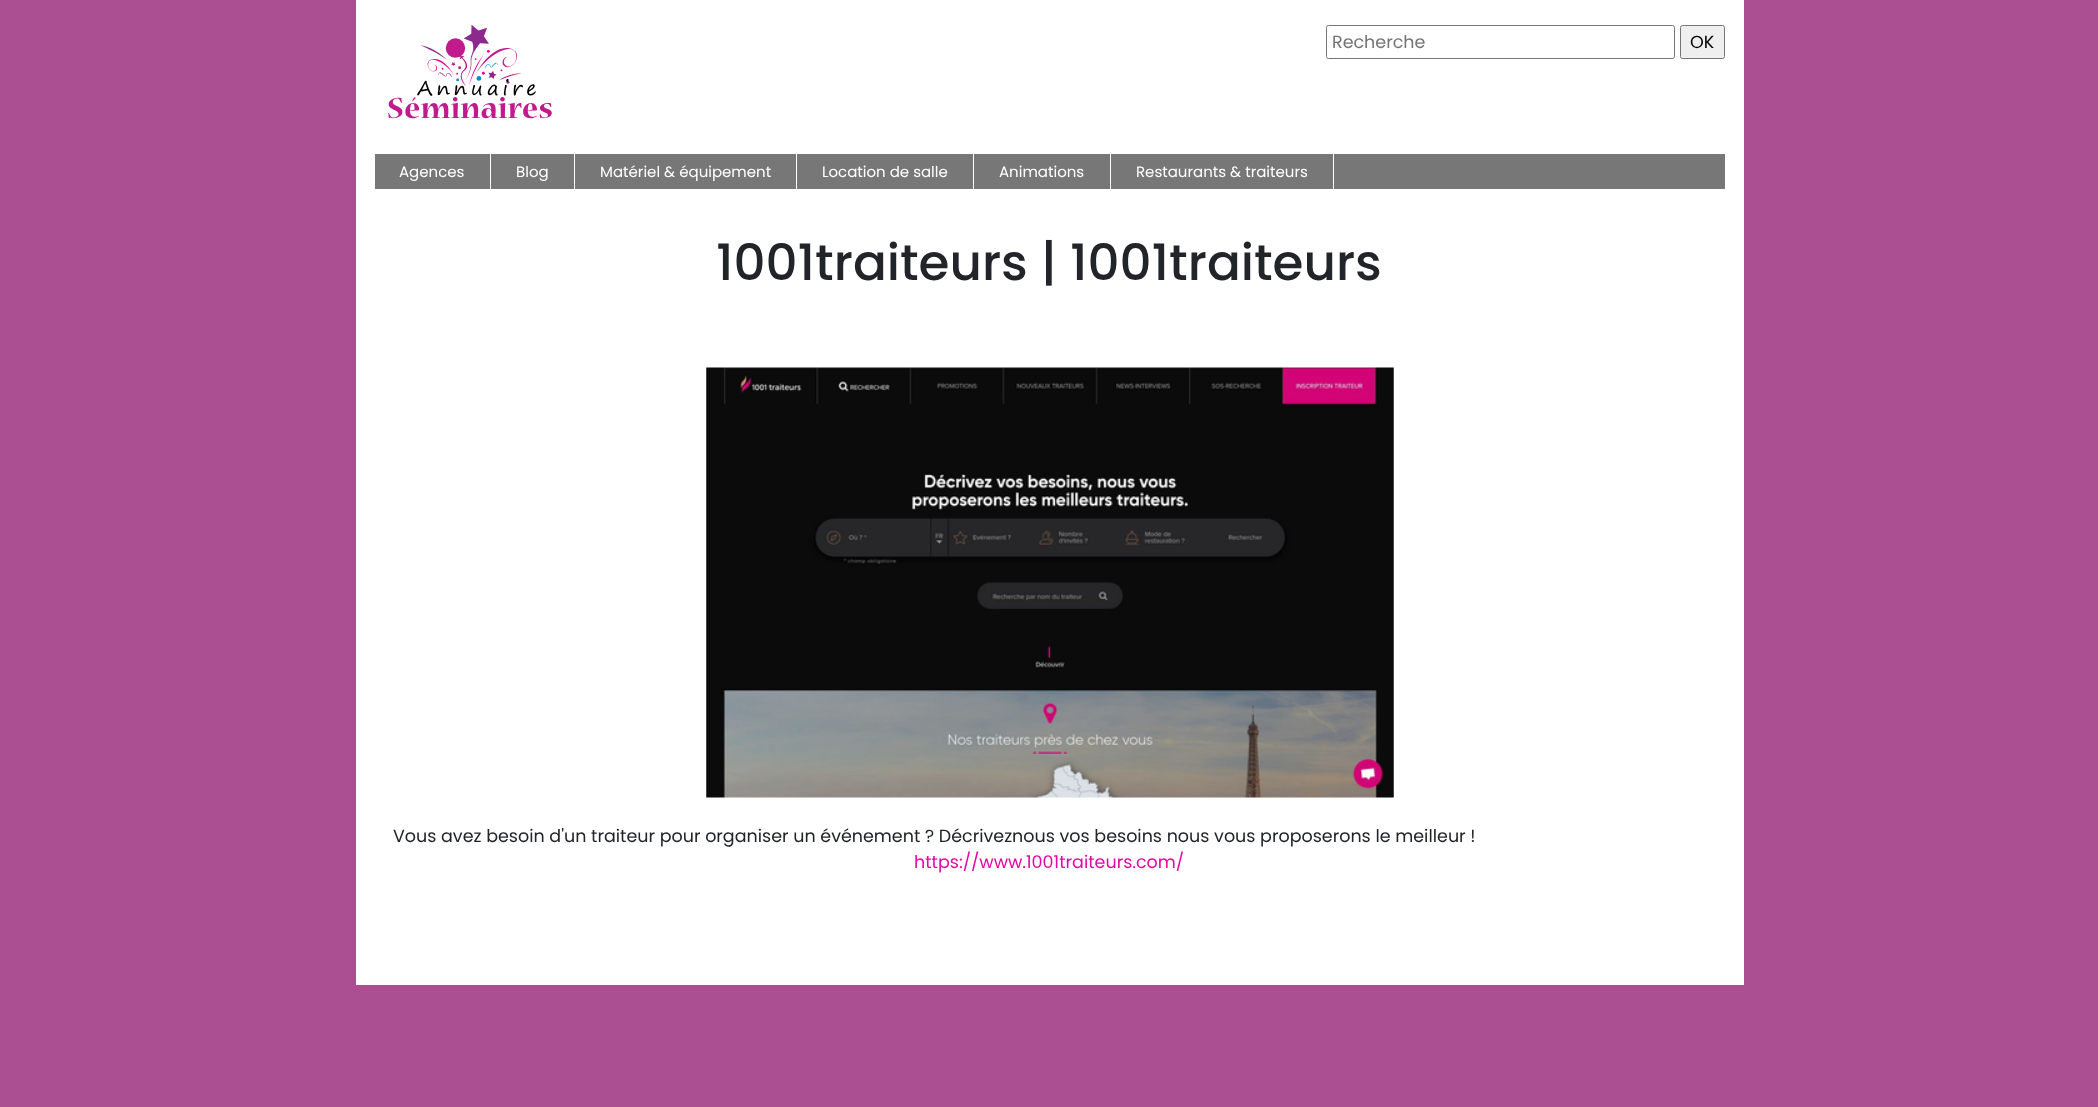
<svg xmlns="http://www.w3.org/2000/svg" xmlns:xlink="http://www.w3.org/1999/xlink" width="2098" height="1107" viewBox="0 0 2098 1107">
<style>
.cls-1{font:17.5px Poppins;fill:#757575}
.cls-2{font:17.5px Poppins;fill:#000000}
.cls-3{font:15px Poppins;fill:#ffffff}
.cls-4{font:500 50px Poppins;fill:#212529}
.cls-5{font:17.5px Poppins;fill:#212529}
.cls-6{font:17.5px Poppins;fill:#e507a8}
</style>
<rect width="100%" height="100%" fill="#ab4e92"/>
<rect fill="#ffffff" x="356" y="0" width="1388" height="985"/>
<image xlink:href="image0.png" x="388" y="25" width="164" height="94"/>
<rect fill="none" stroke="#767676" x="1326.5" y="25.5" width="348" height="33" rx="2"/>
<rect fill="#efefef" stroke="#767676" x="1680.5" y="25.5" width="44" height="33" rx="2"/>
<rect fill="#777777" x="375" y="154" width="1350" height="35"/>
<rect fill="#ffffff" x="490" y="154" width="1" height="35"/>
<rect fill="#ffffff" x="574" y="154" width="1" height="35"/>
<rect fill="#ffffff" x="796" y="154" width="1" height="35"/>
<rect fill="#ffffff" x="973" y="154" width="1" height="35"/>
<rect fill="#ffffff" x="1110" y="154" width="1" height="35"/>
<rect fill="#ffffff" x="1333" y="154" width="1" height="35"/>
<image xlink:href="image1.png" x="706" y="367" width="688" height="431"/>
<text class="cls-1" x="1332" y="48">Recherche</text>
<text class="cls-2" x="1690" y="48">OK</text>
<text class="cls-3" x="399" y="177">Agences</text>
<text class="cls-3" x="516" y="177">Blog</text>
<text class="cls-3" x="600" y="177">Matériel &amp; équipement</text>
<text class="cls-3" x="822" y="177">Location de salle</text>
<text class="cls-3" x="999" y="177">Animations</text>
<text class="cls-3" x="1136" y="177">Restaurants &amp; traiteurs</text>
<text class="cls-4" x="716" y="280">1001traiteurs | 1001traiteurs</text>
<text class="cls-5" x="393" y="842">Vous avez besoin d'un traiteur pour organiser un événement ? Décriveznous vos besoins nous vous proposerons le meilleur !</text>
<text class="cls-6" x="914" y="868">https://www.1001traiteurs.com/</text>
</svg>
